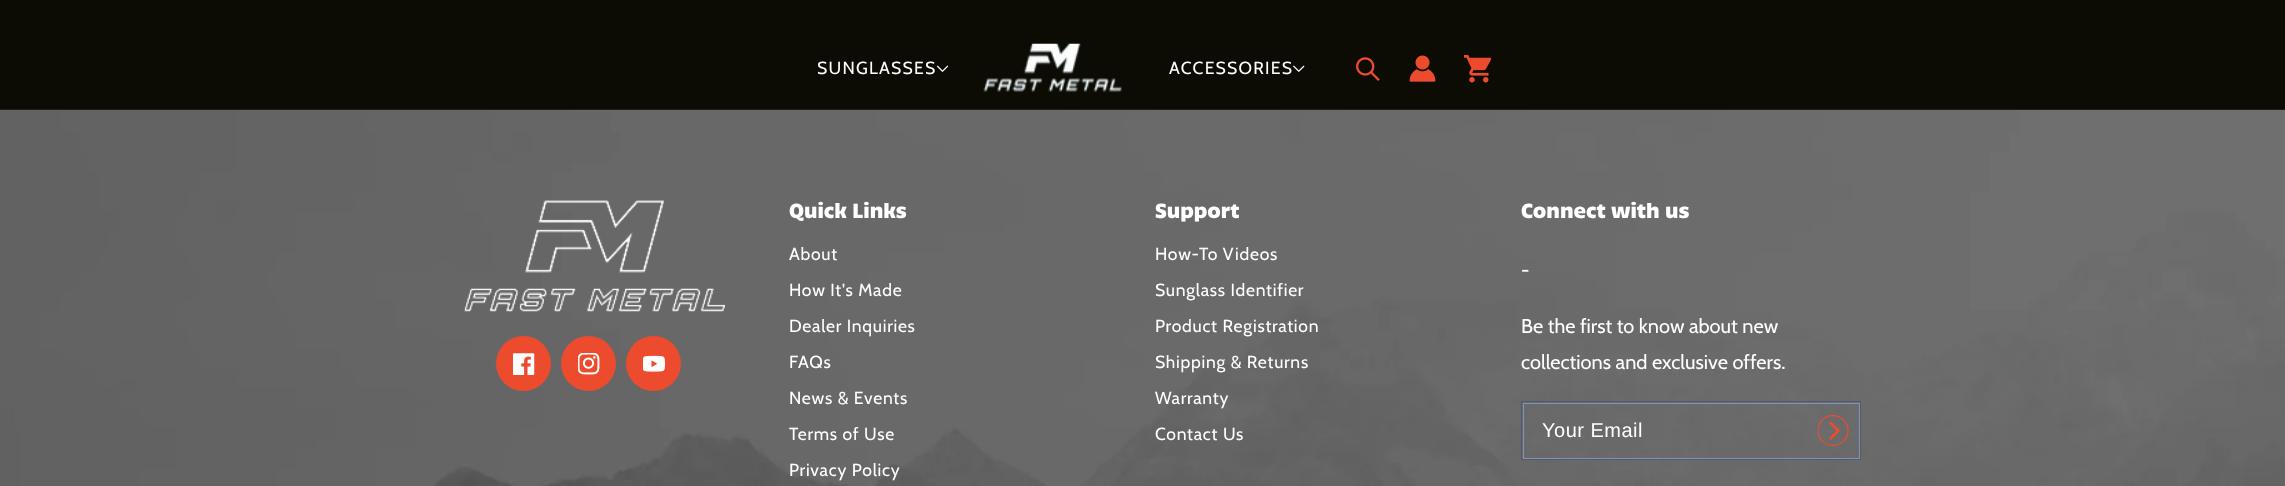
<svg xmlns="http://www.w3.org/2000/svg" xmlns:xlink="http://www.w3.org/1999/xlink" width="2285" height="486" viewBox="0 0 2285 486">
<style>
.cls-1{font:17.5px Cabin;letter-spacing:1.25px;fill:#ffffff}
.cls-2{font:bold 22.5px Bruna;fill:#ffffff}
.cls-3{font:17.5px Cabin;letter-spacing:0.75px;fill:#ffffff}
.cls-4{font:20px Cabin;letter-spacing:0.75px;fill:#ffffff}
.cls-5{font:20px Cabin;fill:#ffffff}
.cls-6{font:20px Liberation Sans;letter-spacing:0.5px;fill:#ffffff}
</style>
<defs>
<clipPath id="clip1"><rect x="1818" y="415" width="31" height="31"/></clipPath>
</defs>
<rect width="100%" height="100%" fill="#ffffff"/>
<rect fill="#0c0c04" x="0" y="0" width="2285" height="109"/>
<rect fill="#1f1f18" x="0" y="109" width="2285" height="1"/>
<image xlink:href="image0.png" x="936" y="65" width="13" height="7"/>
<image xlink:href="image1.png" x="983" y="43" width="139" height="49"/>
<image xlink:href="image2.png" x="1293" y="65" width="12" height="7"/>
<image xlink:href="image3.png" x="1356" y="57" width="24" height="24"/>
<image xlink:href="image4.png" x="1409" y="55" width="27" height="27"/>
<image xlink:href="image5.png" x="1464" y="55" width="27" height="28"/>
<image xlink:href="image6.png" x="0" y="110" width="2285" height="376"/>
<image xlink:href="image7.png" x="463" y="200" width="262" height="112"/>
<circle fill="#ec4c2d" cx="523.5" cy="363.5" r="27.5"/>
<image xlink:href="image8.png" x="513" y="353" width="22" height="22"/>
<circle fill="#ec4c2d" cx="588.5" cy="363.5" r="27.5"/>
<image xlink:href="image9.png" x="578" y="353" width="22" height="22"/>
<circle fill="#ec4c2d" cx="653.5" cy="363.5" r="27.5"/>
<image xlink:href="image10.png" x="643" y="355" width="22" height="17"/>
<rect fill="none" stroke="#7895c8" x="1523.5" y="403.5" width="336" height="55"/>
<rect fill="none" stroke="#4c4c4c" stroke-opacity="0.55" x="1521.5" y="401.5" width="339" height="58"/>
<g clip-path="url(#clip1)">
<circle fill="none" stroke="#ec4c2d" stroke-width="1.3" cx="1833" cy="430.5" r="15"/>
</g>
<path fill="none" stroke="#ec4c2d" stroke-width="2.6" stroke-linecap="round" stroke-linejoin="round" d="M1830.5 423L1838.5 430.5L1830.5 438.5"/>
<text class="cls-1" x="817" y="74">SUNGLASSES</text>
<text class="cls-1" x="1169" y="74">ACCESSORIES</text>
<text class="cls-2" x="789" y="218">Quick Links</text>
<text class="cls-3" x="789" y="260">About</text>
<text class="cls-3" x="789" y="296">How It's Made</text>
<text class="cls-3" x="789" y="332">Dealer Inquiries</text>
<text class="cls-3" x="789" y="368">FAQs</text>
<text class="cls-3" x="789" y="404">News &amp; Events</text>
<text class="cls-3" x="789" y="440">Terms of Use</text>
<text class="cls-3" x="789" y="476">Privacy Policy</text>
<text class="cls-2" x="1155" y="218">Support</text>
<text class="cls-3" x="1155" y="260">How-To Videos</text>
<text class="cls-3" x="1155" y="296">Sunglass Identifier</text>
<text class="cls-3" x="1155" y="332">Product Registration</text>
<text class="cls-3" x="1155" y="368">Shipping &amp; Returns</text>
<text class="cls-3" x="1155" y="404">Warranty</text>
<text class="cls-3" x="1155" y="440">Contact Us</text>
<text class="cls-2" x="1521" y="218">Connect with us</text>
<text class="cls-4" x="1521" y="277">-</text>
<text class="cls-5"><tspan x="1521" y="333">Be the first to know about new</tspan><tspan x="1521" y="369">collections and exclusive offers.</tspan></text>
<text class="cls-6" x="1542" y="437">Your Email</text>
</svg>
